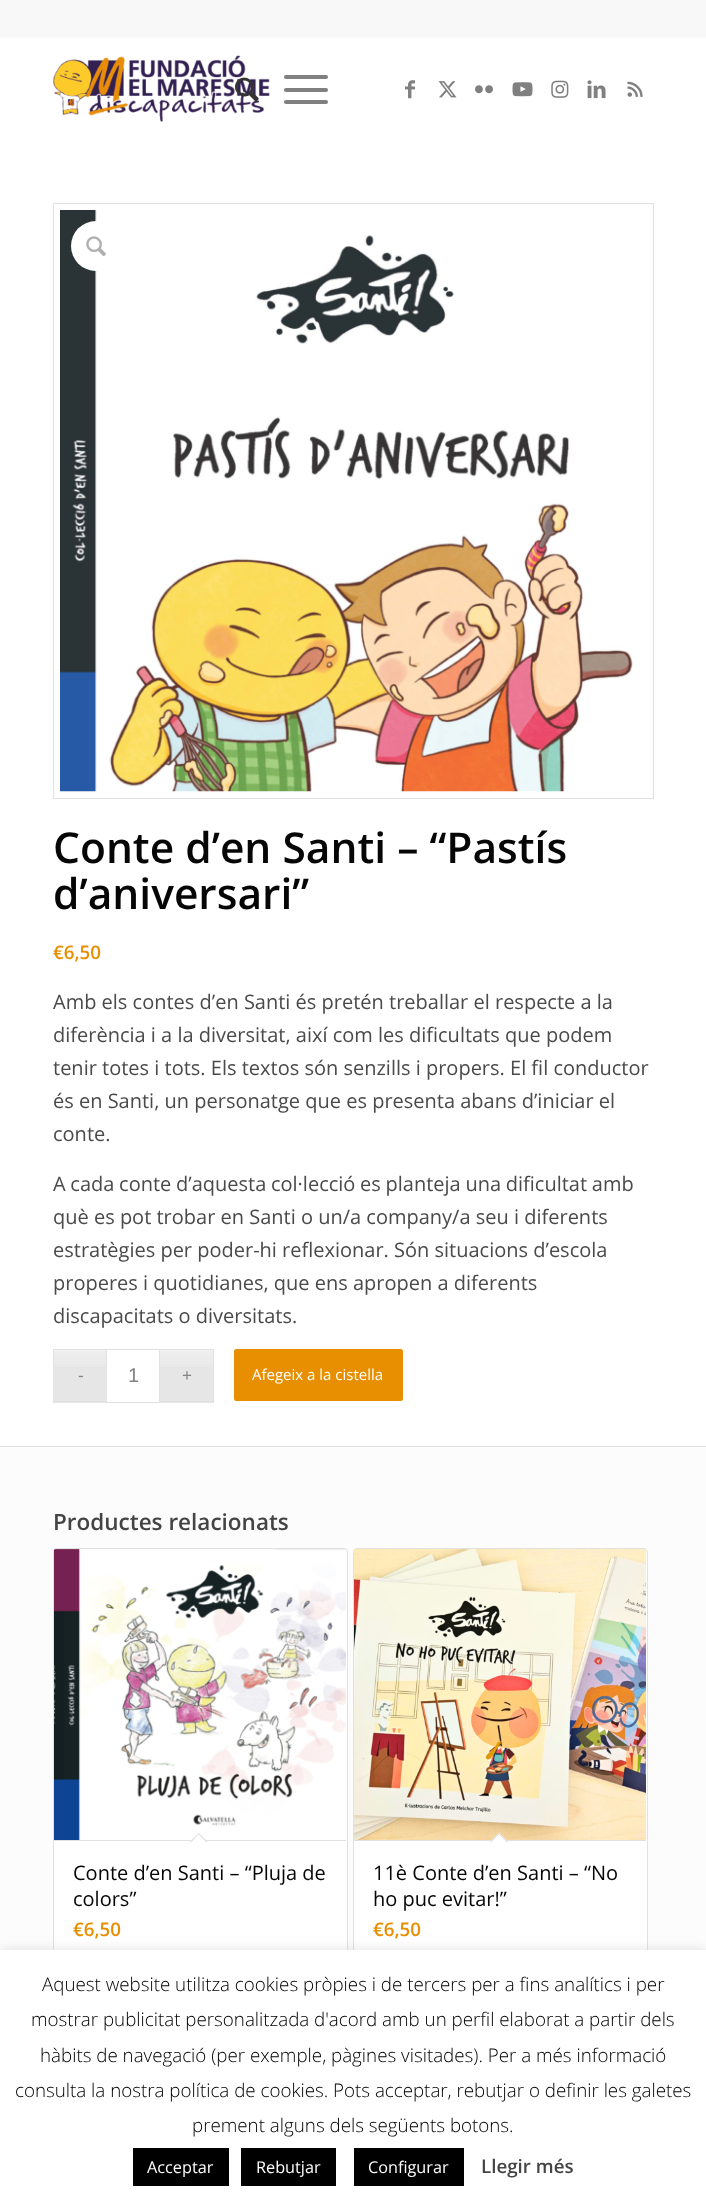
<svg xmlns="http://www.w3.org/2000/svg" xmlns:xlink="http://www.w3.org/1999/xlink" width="706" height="2207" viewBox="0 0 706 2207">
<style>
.cls-1{font:600 42.5px Open Sans;fill:#060606}
.cls-2{font:600 18.75px Open Sans;fill:#e88f01}
.cls-3{font:20px Open Sans;fill:#4a4a4a}
.cls-4{font:17px Liberation Sans;fill:#838383}
.cls-5{font:20px Liberation Sans;fill:#838383}
.cls-6{font:15px Open Sans;fill:#ffffff}
.cls-7{font:600 22.5px Open Sans;fill:#444444}
.cls-8{font:20px Open Sans;fill:#060606}
.cls-9{font:300 18.75px Open Sans;fill:#000000}
.cls-10{font:16.25px Open Sans;fill:#ffffff}
.cls-11{font:600 18.75px Open Sans;fill:#444444}
</style>
<rect width="100%" height="100%" fill="#ffffff"/>
<rect fill="#f8f8f8" x="0" y="0" width="706" height="38"/>
<image xlink:href="image0.png" x="53" y="55" width="217" height="67"/>
<image xlink:href="image1.png" x="235" y="77" width="24" height="25"/>
<rect fill="#808080" x="284" y="88" width="44" height="4" rx="2"/>
<rect fill="#808080" x="284" y="75" width="44" height="4" rx="2"/>
<rect fill="#808080" x="284" y="100" width="44" height="4" rx="2"/>
<image xlink:href="image2.png" x="405" y="80" width="10" height="19"/>
<image xlink:href="image3.png" x="438" y="81" width="19" height="17"/>
<image xlink:href="image4.png" x="475" y="85" width="18" height="9"/>
<image xlink:href="image5.png" x="512" y="82" width="21" height="15"/>
<image xlink:href="image6.png" x="551" y="80" width="18" height="18"/>
<image xlink:href="image7.png" x="587" y="80" width="19" height="19"/>
<image xlink:href="image8.png" x="627" y="81" width="16" height="16"/>
<rect fill="none" stroke="#e1e1e1" x="53.5" y="203.5" width="600" height="595"/>
<image xlink:href="image9.png" x="60" y="210" width="573" height="582"/>
<circle fill="#ffffff" cx="96" cy="246" r="25"/>
<image xlink:href="image10.png" x="86" y="236" width="20" height="21"/>
<rect fill="#e6e6e6" x="54" y="1350" width="52" height="53"/>
<image xlink:href="image11.png" x="54" y="1350" width="52" height="17"/>
<rect fill="#e6e6e6" x="160" y="1350" width="53" height="53"/>
<image xlink:href="image12.png" x="160" y="1350" width="53" height="17"/>
<rect fill="#e1e1e1" x="53" y="1349" width="53" height="1"/>
<rect fill="#e1e1e1" x="53" y="1401" width="53" height="1"/>
<rect fill="#e1e1e1" x="53" y="1349" width="1" height="54"/>
<rect fill="none" stroke="#e1e1e1" x="106.5" y="1349.5" width="53" height="53"/>
<rect fill="#e1e1e1" x="160" y="1349" width="54" height="1"/>
<rect fill="#e1e1e1" x="213" y="1349" width="1" height="54"/>
<rect fill="#e1e1e1" x="160" y="1401" width="54" height="1"/>
<rect fill="#e88f01" x="234" y="1349" width="169" height="52" rx="2.5"/>
<rect fill="#fcfcfc" x="0" y="1447" width="706" height="503"/>
<rect fill="#e1e1e1" x="0" y="1446" width="706" height="1"/>
<rect fill="#ffffff" stroke="#e1e1e1" x="53.5" y="1548.5" width="294" height="470" rx="3.5"/>
<image xlink:href="image13.png" x="54" y="1549" width="292" height="291"/>
<rect fill="#e1e1e1" x="54" y="1840" width="292" height="1"/>
<path fill="#ffffff" d="M199 1833L207.5 1841.5L199 1850.5L190 1841.5Z"/>
<path fill="#e1e1e1" d="M199 1833L207.5 1841.5L206.5 1842.5L198 1833.5Z"/>
<path fill="#e1e1e1" d="M199 1833L199.5 1833.5L191 1842.5L190 1841.5Z"/>
<rect fill="#ffffff" stroke="#e1e1e1" x="353.5" y="1548.5" width="294" height="470" rx="3.5"/>
<image xlink:href="image14.png" x="354" y="1549" width="292" height="291"/>
<rect fill="#e1e1e1" x="354" y="1840" width="292" height="1"/>
<path fill="#ffffff" d="M499 1833L508 1841.5L499 1850.5L490 1841.5Z"/>
<path fill="#e1e1e1" d="M499 1833L508 1841.5L507 1842.5L498 1833.5Z"/>
<path fill="#e1e1e1" d="M499 1833L500 1833.5L491 1842.5L490 1841.5Z"/>
<rect fill="#acabab" fill-opacity="0.3" filter="blur(6px)" x="0" y="1949" width="706" height="257"/>
<rect fill="#ffffff" x="0" y="1950" width="706" height="257"/>
<rect fill="#000000" x="133" y="2148" width="96" height="38"/>
<rect fill="#000000" x="241" y="2148" width="95" height="38"/>
<rect fill="#000000" x="354" y="2148" width="110" height="38"/>
<text class="cls-1"><tspan x="53" y="863">Conte d’en Santi – “Pastís</tspan><tspan x="53" y="909">d’aniversari”</tspan></text>
<text class="cls-2" x="53" y="959">€6,50</text>
<text class="cls-3"><tspan x="53" y="1009">Amb els contes d’en Santi és pretén treballar el respecte a la</tspan><tspan x="53" y="1042">diferència i a la diversitat, així com les dificultats que podem</tspan><tspan x="53" y="1075">tenir totes i tots. Els textos són senzills i propers. El fil conductor</tspan><tspan x="53" y="1108">és en Santi, un personatge que es presenta abans d’iniciar el</tspan><tspan x="53" y="1141">conte.</tspan></text>
<text class="cls-3"><tspan x="53" y="1191" word-spacing="-0.5">A cada conte d’aquesta col·lecció es planteja una dificultat amb</tspan><tspan x="53" y="1224">què es pot trobar en Santi o un/a company/a seu i diferents</tspan><tspan x="53" y="1257">estratègies per poder-hi reflexionar. Són situacions d’escola</tspan><tspan x="53" y="1290">properes i quotidianes, que ens apropen a diferents</tspan><tspan x="53" y="1323">discapacitats o diversitats.</tspan></text>
<text class="cls-4" x="78" y="1381">-</text>
<text class="cls-5" x="128" y="1382">1</text>
<text class="cls-4" x="182" y="1381">+</text>
<text class="cls-6" x="252" y="1380">Afegeix a la cistella</text>
<text class="cls-7" x="53" y="1530">Productes relacionats</text>
<text class="cls-8"><tspan x="73" y="1880">Conte d’en Santi – “Pluja de</tspan><tspan x="73" y="1906">colors”</tspan></text>
<text class="cls-2" x="73" y="1936">€6,50</text>
<text class="cls-8"><tspan x="373" y="1880">11è Conte d’en Santi – “No</tspan><tspan x="373" y="1906">ho puc evitar!”</tspan></text>
<text class="cls-2" x="373" y="1936">€6,50</text>
<text class="cls-9" x="42" y="1991">Aquest website utilitza cookies pròpies i de tercers per a fins analítics i per</text>
<text class="cls-9" x="31" y="2026">mostrar publicitat personalitzada d'acord amb un perfil elaborat a partir dels</text>
<text class="cls-9" x="40" y="2062">hàbits de navegació (per exemple, pàgines visitades). Per a més informació</text>
<text class="cls-9" x="15" y="2097">consulta la nostra política de cookies. Pots acceptar, rebutjar o definir les galetes</text>
<text class="cls-9" x="192" y="2132">prement alguns dels següents botons.</text>
<text class="cls-10" x="147" y="2173">Acceptar</text>
<text class="cls-10" x="256" y="2173">Rebutjar</text>
<text class="cls-10" x="368" y="2173">Configurar</text>
<text class="cls-11" x="481" y="2173">Llegir més</text>
</svg>
